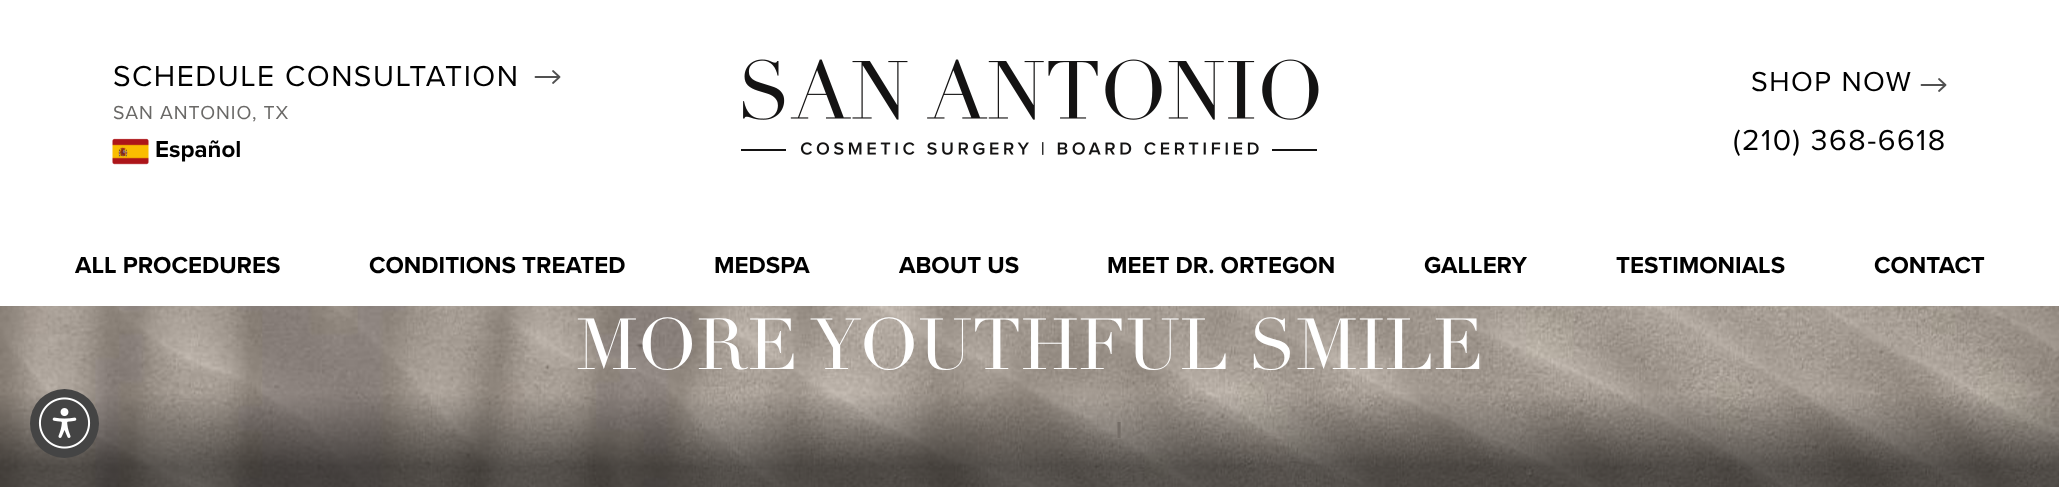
<svg xmlns="http://www.w3.org/2000/svg" xmlns:xlink="http://www.w3.org/1999/xlink" width="2059" height="487" viewBox="0 0 2059 487">
<style>
.cls-1{font:30px Proxima Nova;letter-spacing:1.5px;fill:#000000}
.cls-2{font:19.5px Proxima Nova;letter-spacing:1px;fill:#6a6967}
.cls-3{font:bold 24px Proxima Nova;fill:#000000}
.cls-4{font:28.5px Proxima Nova;letter-spacing:1.5px;fill:#000000}
.cls-5{font:bold 24px Proxima Nova;fill:#746d67}
.cls-6{font:71px Didot;fill:#ffffff}
</style>
<rect width="100%" height="100%" fill="#ffffff"/>
<path fill="none" stroke="#515151" stroke-width="1.8" stroke-linecap="round" stroke-linejoin="round" d="M553 71L559.5 77M559.5 77L553 83M559.5 77H535.5"/>
<image xlink:href="image0.png" x="112" y="138" width="37" height="27"/>
<image xlink:href="image1.png" x="741" y="59" width="578" height="96"/>
<path fill="none" stroke="#515151" stroke-width="1.8" stroke-linecap="round" stroke-linejoin="round" d="M1939 79L1945.5 85M1945.5 85L1939 91M1945.5 85H1921.5"/>
<image xlink:href="image2.png" x="0" y="306" width="2059" height="181"/>
<circle fill="#444444" cx="64.5" cy="423.5" r="34.5"/>
<image xlink:href="image3.png" x="38" y="397" width="53" height="52"/>
<text class="cls-1" x="113" y="86">SCHEDULE CONSULTATION</text>
<text class="cls-2" x="113" y="119">SAN ANTONIO, TX</text>
<text class="cls-3" x="155" y="157">Español</text>
<text class="cls-4" x="1751" y="91">SHOP NOW</text>
<text class="cls-1" x="1733" y="150">(210) 368-6618</text>
<text class="cls-3" x="75" y="273">ALL PROCEDURES</text>
<text class="cls-3" x="369" y="273">CONDITIONS TREATED</text>
<text class="cls-3" x="714" y="273">MEDSPA</text>
<text class="cls-5" x="1116" y="438">l</text>
<text class="cls-3" x="899" y="273">ABOUT US</text>
<text class="cls-3" x="1107" y="273">MEET DR. ORTEGON</text>
<text class="cls-3" x="1424" y="273">GALLERY</text>
<text class="cls-3" x="1616" y="273">TESTIMONIALS</text>
<text class="cls-3" x="1874" y="273">CONTACT</text>
<text class="cls-6" x="576" y="369">MORE YOUTHFUL SMILE</text>
</svg>
